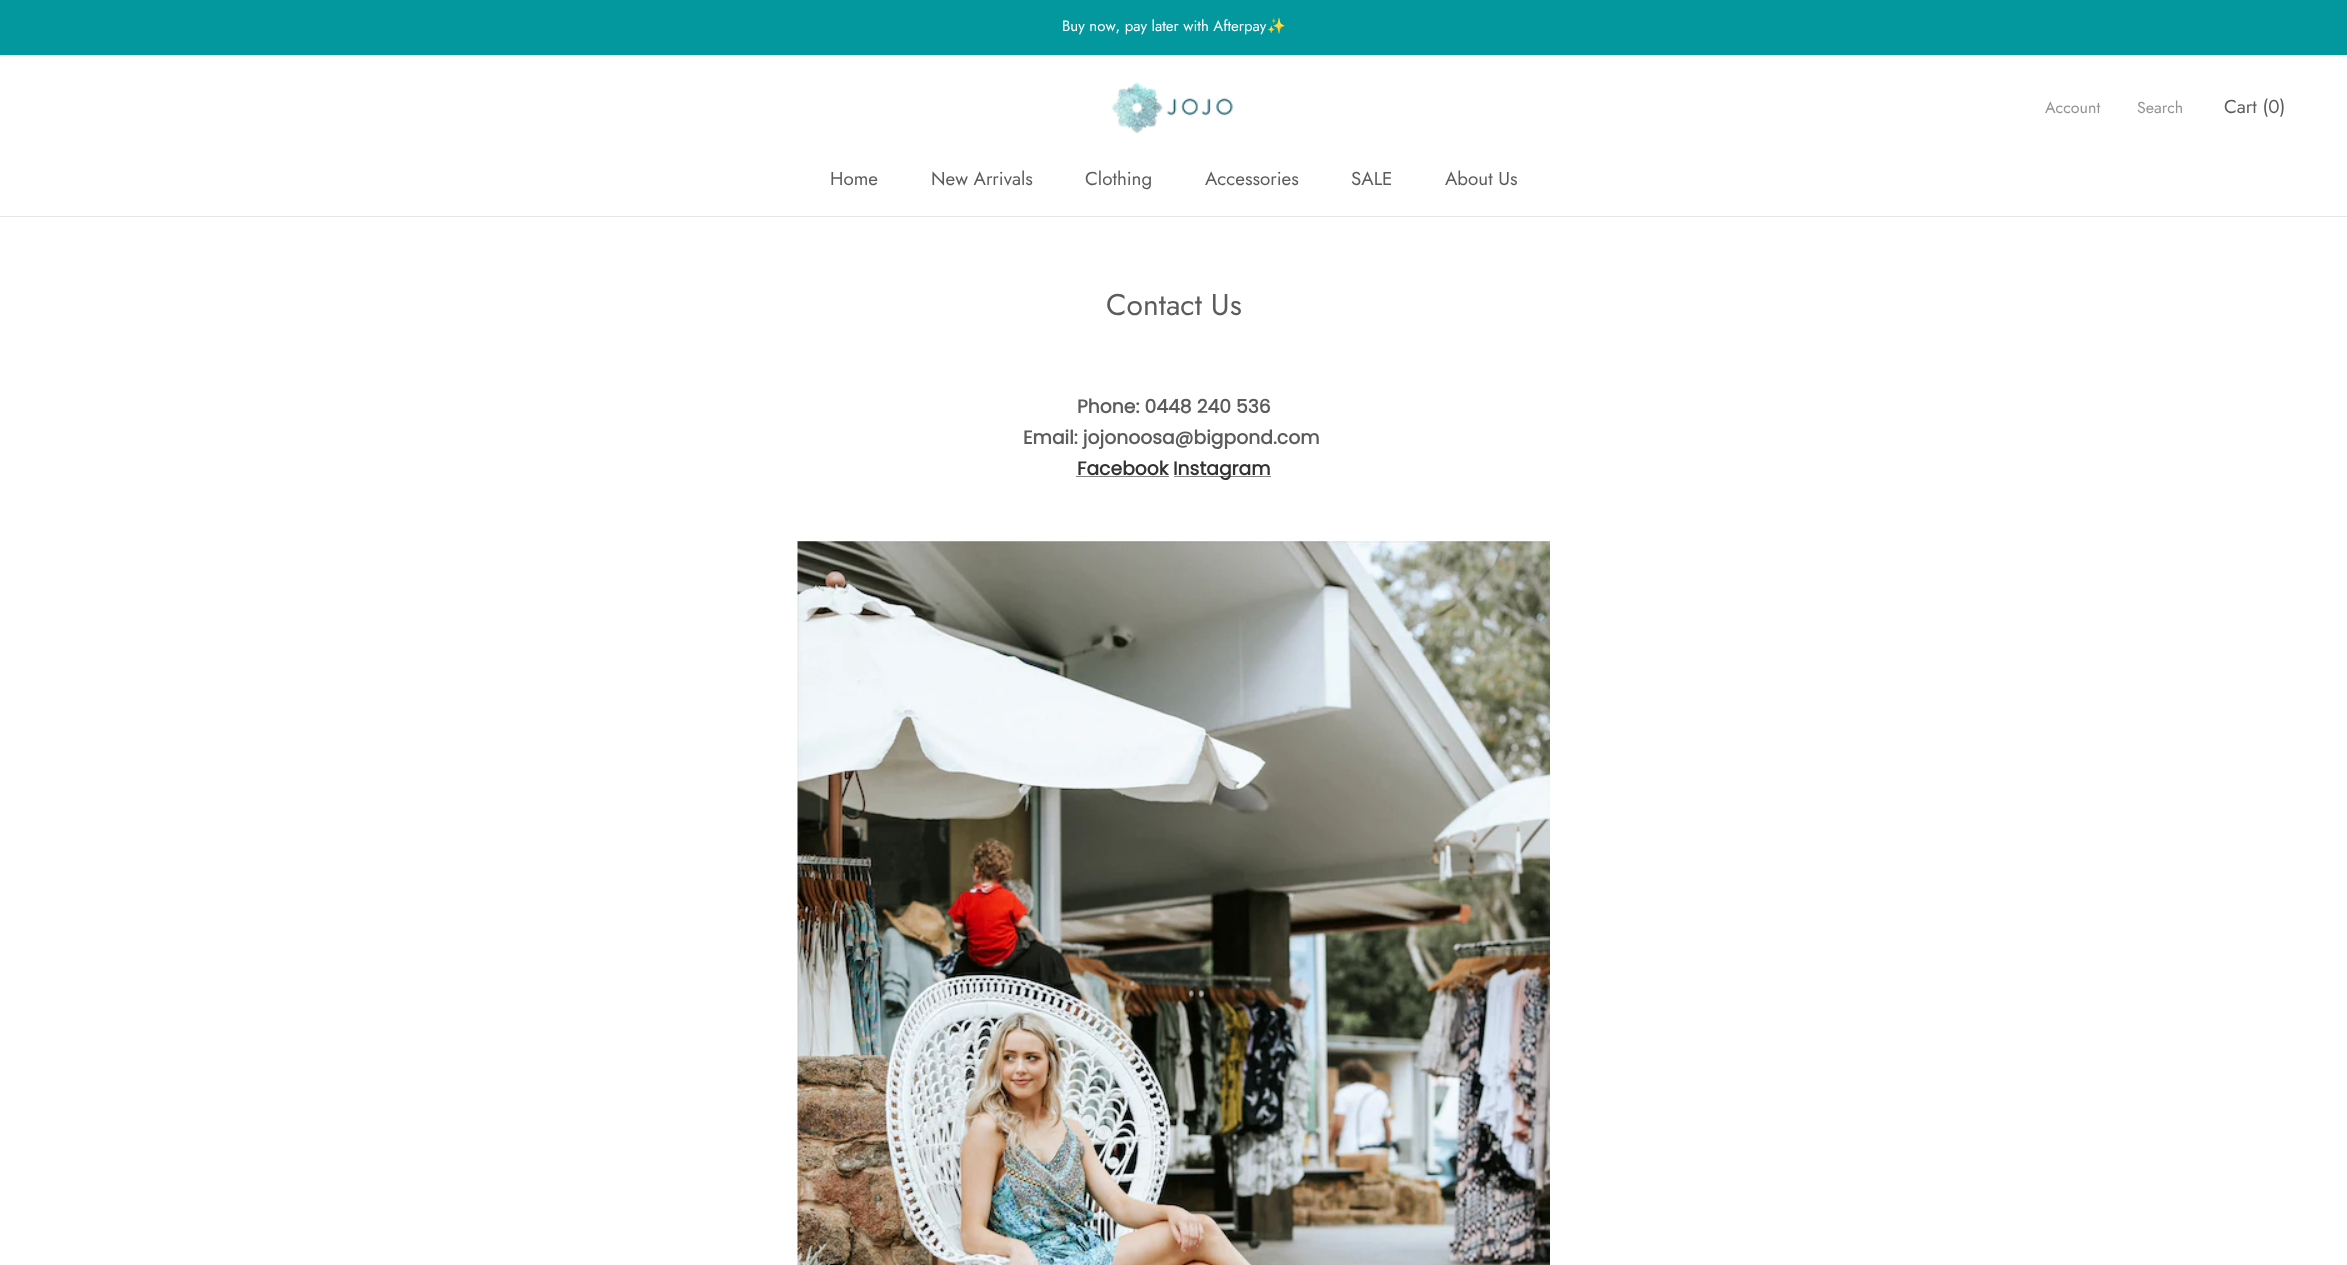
<svg xmlns="http://www.w3.org/2000/svg" xmlns:xlink="http://www.w3.org/1999/xlink" width="2347" height="1265" viewBox="0 0 2347 1265">
<style>*{font-kerning:none!important;font-variant-ligatures:none!important}</style>
<style>
.cls-1{font:15px Jost;fill:#ffffff}
.cls-2{font:15px Noto Color Emoji;fill:#ffffff}
.cls-3{font:16px Jost;fill:#939393}
.cls-4{font:18.75px Jost;fill:#5c5c5c}
.cls-5{font:30px Jost;fill:#5c5c5c}
.cls-6{font:bold 18.75px Poppins;fill:#5c5c5c}
.cls-7{font:bold 18.75px Poppins;fill:#323232}
</style>
<rect width="100%" height="100%" fill="#ffffff"/>
<rect fill="#03989e" x="0" y="0" width="2347" height="55"/>
<rect fill="#e7e7e7" x="0" y="216" width="2347" height="1"/>
<image xlink:href="image0.png" x="1111" y="82" width="122" height="52"/>
<rect fill="#848484" x="1076" y="476" width="93" height="1"/>
<rect fill="#848484" x="1174" y="476" width="97" height="1"/>
<image xlink:href="image1.png" x="797" y="541" width="753" height="724"/>
<text class="cls-1" x="1062" y="31">Buy now, pay later with Afterpay</text>
<text class="cls-2" x="1267" y="31">✨</text>
<text class="cls-3" x="2045" y="113">Account</text>
<text class="cls-3" x="2137" y="113">Search</text>
<text class="cls-4" x="2224" y="113">Cart (0)</text>
<text class="cls-4" x="830" y="185">Home</text>
<text class="cls-4" x="931" y="185">New Arrivals</text>
<text class="cls-4" x="1085" y="185">Clothing</text>
<text class="cls-4" x="1205" y="185">Accessories</text>
<text class="cls-4" x="1351" y="185">SALE</text>
<text class="cls-4" x="1445" y="185">About Us</text>
<text class="cls-5" x="1106" y="315">Contact Us</text>
<text class="cls-6" x="1077" y="413">Phone: 0448 240 536</text>
<text class="cls-6" x="1023" y="444">Email: jojonoosa@bigpond.com</text>
<text class="cls-7" x="1077" y="475">Facebook</text>
<text class="cls-7" x="1173" y="475">Instagram</text>
</svg>
